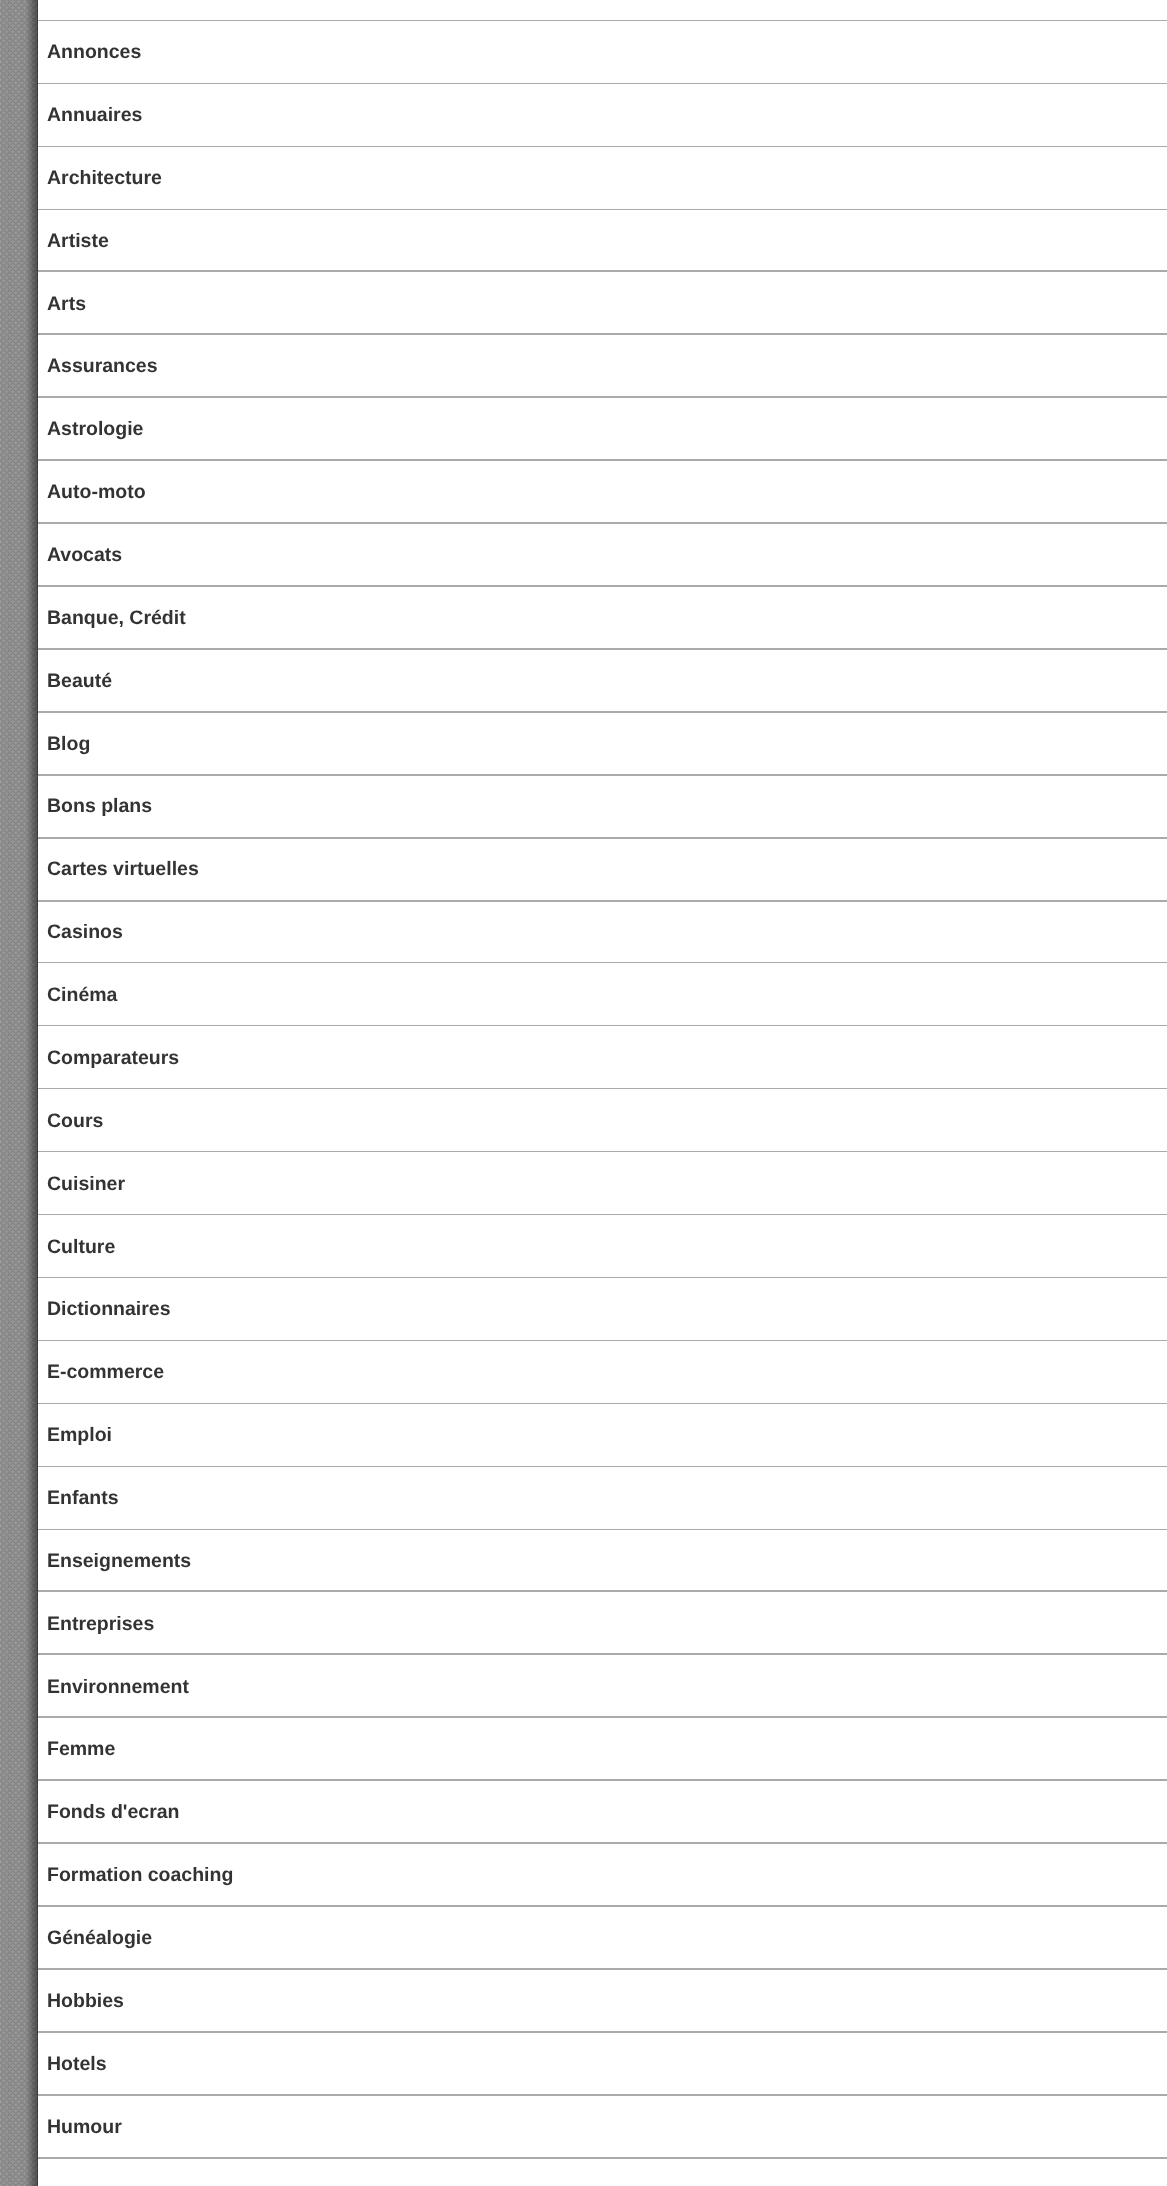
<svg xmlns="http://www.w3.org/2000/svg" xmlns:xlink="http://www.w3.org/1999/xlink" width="1167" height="2186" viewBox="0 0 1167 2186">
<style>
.cls-1{font:bold 19.5px Liberation Sans;fill:#333333}
</style>
<rect width="100%" height="100%" fill="#ffffff"/>
<image xlink:href="image0.png" x="0" y="0" width="38" height="2186"/>
<rect fill="#aaaaaa" x="38" y="20" width="1129" height="1"/>
<rect fill="#aaaaaa" x="38" y="83" width="1129" height="1"/>
<rect fill="#aaaaaa" x="38" y="146" width="1129" height="1"/>
<rect fill="#aaaaaa" x="38" y="209" width="1129" height="1"/>
<rect fill="#aaaaaa" x="38" y="270" width="1129" height="2"/>
<rect fill="#aaaaaa" x="38" y="333" width="1129" height="2"/>
<rect fill="#aaaaaa" x="38" y="396" width="1129" height="2"/>
<rect fill="#aaaaaa" x="38" y="459" width="1129" height="2"/>
<rect fill="#aaaaaa" x="38" y="522" width="1129" height="2"/>
<rect fill="#aaaaaa" x="38" y="585" width="1129" height="2"/>
<rect fill="#aaaaaa" x="38" y="648" width="1129" height="2"/>
<rect fill="#aaaaaa" x="38" y="711" width="1129" height="2"/>
<rect fill="#aaaaaa" x="38" y="774" width="1129" height="2"/>
<rect fill="#aaaaaa" x="38" y="837" width="1129" height="2"/>
<rect fill="#aaaaaa" x="38" y="900" width="1129" height="2"/>
<rect fill="#aaaaaa" x="38" y="962" width="1129" height="1"/>
<rect fill="#aaaaaa" x="38" y="1025" width="1129" height="1"/>
<rect fill="#aaaaaa" x="38" y="1088" width="1129" height="1"/>
<rect fill="#aaaaaa" x="38" y="1151" width="1129" height="1"/>
<rect fill="#aaaaaa" x="38" y="1214" width="1129" height="1"/>
<rect fill="#aaaaaa" x="38" y="1277" width="1129" height="1"/>
<rect fill="#aaaaaa" x="38" y="1340" width="1129" height="1"/>
<rect fill="#aaaaaa" x="38" y="1403" width="1129" height="1"/>
<rect fill="#aaaaaa" x="38" y="1466" width="1129" height="1"/>
<rect fill="#aaaaaa" x="38" y="1529" width="1129" height="1"/>
<rect fill="#aaaaaa" x="38" y="1590" width="1129" height="2"/>
<rect fill="#aaaaaa" x="38" y="1653" width="1129" height="2"/>
<rect fill="#aaaaaa" x="38" y="1716" width="1129" height="2"/>
<rect fill="#aaaaaa" x="38" y="1779" width="1129" height="2"/>
<rect fill="#aaaaaa" x="38" y="1842" width="1129" height="2"/>
<rect fill="#aaaaaa" x="38" y="1905" width="1129" height="2"/>
<rect fill="#aaaaaa" x="38" y="1968" width="1129" height="2"/>
<rect fill="#aaaaaa" x="38" y="2031" width="1129" height="2"/>
<rect fill="#aaaaaa" x="38" y="2094" width="1129" height="2"/>
<rect fill="#aaaaaa" x="38" y="2157" width="1129" height="2"/>
<text class="cls-1" x="47" y="58">Annonces</text>
<text class="cls-1" x="47" y="121">Annuaires</text>
<text class="cls-1" x="47" y="184">Architecture</text>
<text class="cls-1" x="47" y="247">Artiste</text>
<text class="cls-1" x="47" y="310">Arts</text>
<text class="cls-1" x="47" y="372">Assurances</text>
<text class="cls-1" x="47" y="435">Astrologie</text>
<text class="cls-1" x="47" y="498">Auto-moto</text>
<text class="cls-1" x="47" y="561">Avocats</text>
<text class="cls-1" x="47" y="624">Banque, Crédit</text>
<text class="cls-1" x="47" y="687">Beauté</text>
<text class="cls-1" x="47" y="750">Blog</text>
<text class="cls-1" x="47" y="812">Bons plans</text>
<text class="cls-1" x="47" y="875">Cartes virtuelles</text>
<text class="cls-1" x="47" y="938">Casinos</text>
<text class="cls-1" x="47" y="1001">Cinéma</text>
<text class="cls-1" x="47" y="1064">Comparateurs</text>
<text class="cls-1" x="47" y="1127">Cours</text>
<text class="cls-1" x="47" y="1190">Cuisiner</text>
<text class="cls-1" x="47" y="1253">Culture</text>
<text class="cls-1" x="47" y="1315">Dictionnaires</text>
<text class="cls-1" x="47" y="1378">E-commerce</text>
<text class="cls-1" x="47" y="1441">Emploi</text>
<text class="cls-1" x="47" y="1504">Enfants</text>
<text class="cls-1" x="47" y="1567">Enseignements</text>
<text class="cls-1" x="47" y="1630">Entreprises</text>
<text class="cls-1" x="47" y="1693">Environnement</text>
<text class="cls-1" x="47" y="1755">Femme</text>
<text class="cls-1" x="47" y="1818">Fonds d'ecran</text>
<text class="cls-1" x="47" y="1881">Formation coaching</text>
<text class="cls-1" x="47" y="1944">Généalogie</text>
<text class="cls-1" x="47" y="2007">Hobbies</text>
<text class="cls-1" x="47" y="2070">Hotels</text>
<text class="cls-1" x="47" y="2133">Humour</text>
</svg>
